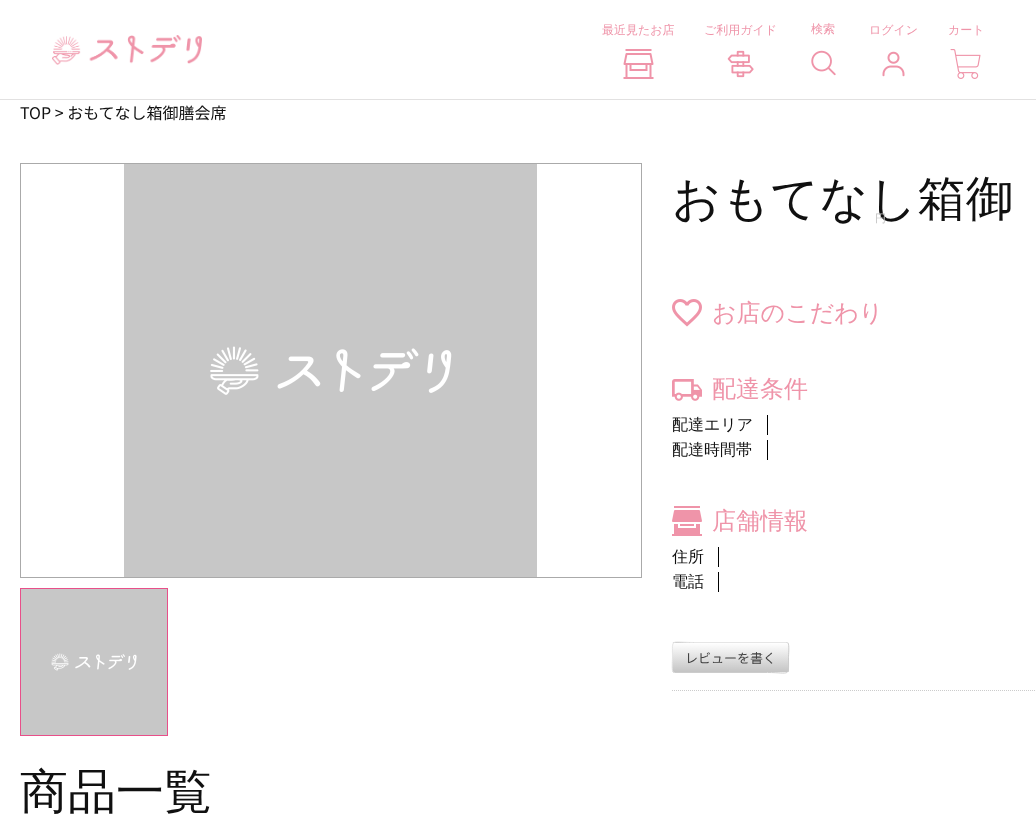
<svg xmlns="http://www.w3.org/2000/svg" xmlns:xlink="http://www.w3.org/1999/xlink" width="1036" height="818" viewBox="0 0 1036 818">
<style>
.cls-1{font:500 12px WenQuanYi Zen Hei;fill:#ef94a9}
.cls-2{font:16px Noto Sans JP;fill:#101010}
.cls-3{font:500 48px WenQuanYi Zen Hei;fill:#101010}
.cls-4{font:500 11px WenQuanYi Zen Hei;letter-spacing:3px;fill:#c1c1c1}
.cls-5{font:500 24px WenQuanYi Zen Hei;fill:#ef94a9}
.cls-6{font:500 16px WenQuanYi Zen Hei;fill:#101010}
.cls-7{font:13px Noto Sans JP;fill:#404040}
</style>
<defs>
<clipPath id="clip1"><rect x="672" y="642" width="117" height="31" rx="3"/></clipPath>
<linearGradient id="g1" gradientUnits="userSpaceOnUse" x1="731" y1="614" x2="731" y2="643"><stop offset="0" stop-color="#ffffff"/><stop offset="1" stop-color="#c4c4c4"/></linearGradient>
<linearGradient id="g2" gradientUnits="userSpaceOnUse" x1="731" y1="643" x2="731" y2="672"><stop offset="0" stop-color="#ffffff"/><stop offset="1" stop-color="#c4c4c4"/></linearGradient>
</defs>
<rect width="100%" height="100%" fill="#ffffff"/>
<rect fill="#e2e1e1" x="0" y="99" width="1036" height="1"/>
<image xlink:href="image0.png" x="623" y="49" width="31" height="30"/>
<image xlink:href="image1.png" x="727" y="50" width="27" height="28"/>
<image xlink:href="image2.png" x="811" y="50" width="25" height="26"/>
<image xlink:href="image3.png" x="882" y="51" width="23" height="26"/>
<image xlink:href="image4.png" x="950" y="49" width="31" height="30"/>
<image xlink:href="image5.png" x="52" y="35" width="150" height="30"/>
<image xlink:href="image6.png" x="672" y="299" width="30" height="28"/>
<image xlink:href="image7.png" x="672" y="379" width="30" height="22"/>
<rect fill="#000000" x="767" y="415" width="1" height="20"/>
<rect fill="#000000" x="767" y="440" width="1" height="20"/>
<image xlink:href="image8.png" x="672" y="506" width="30" height="30"/>
<rect fill="#000000" x="718" y="547" width="1" height="20"/>
<rect fill="#000000" x="718" y="572" width="1" height="20"/>
<g clip-path="url(#clip1)">
<rect fill="url(#g1)" x="672" y="642" width="117" height="1"/>
<rect fill="url(#g2)" x="672" y="643" width="117" height="29"/>
</g>
<path fill="none" stroke="#cccccc" d="M788 643C789.5 645 788.5 655 788.5 657.5C788.5 677.5 791 672.5 767.5 672.5H674.5L673 672"/>
<path fill="none" stroke="#e6e6e6" d="M673 672C671.5 670 672.5 660 672.5 657.5C672.5 637.5 670 642.5 693.5 642.5H786.5L788 643"/>
<path fill="none" stroke="#cccccc" stroke-dasharray="1 1" d="M672 690.5H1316"/>
<rect fill="none" stroke="#aaaaaa" x="20.5" y="163.5" width="621" height="414"/>
<image xlink:href="image9.png" x="124" y="164" width="413" height="413"/>
<rect fill="none" stroke="#e84f89" x="20.5" y="588.5" width="147" height="147"/>
<image xlink:href="image10.png" x="21" y="589" width="146" height="146"/>
<text class="cls-1" x="602" y="34">最近見たお店</text>
<text class="cls-1" x="704" y="34">ご利用ガイド</text>
<text class="cls-1" x="811" y="33">検索</text>
<text class="cls-1" x="869" y="34">ログイン</text>
<text class="cls-1" x="948" y="34">カート</text>
<text class="cls-2" x="20" y="119">TOP &gt; おもてなし箱御膳会席</text>
<text class="cls-3" x="672" y="215">おもてなし箱御</text>
<text class="cls-4" x="875" y="222">円</text>
<text class="cls-5" x="712" y="321">お店のこだわり</text>
<text class="cls-5" x="712" y="397">配達条件</text>
<text class="cls-6"><tspan x="672" y="430">配達エリア</tspan><tspan x="672" y="455">配達時間帯</tspan></text>
<text class="cls-5" x="712" y="529">店舗情報</text>
<text class="cls-6"><tspan x="672" y="562">住所</tspan><tspan x="672" y="587">電話</tspan></text>
<text class="cls-7" x="685" y="663">レビューを書く</text>
<text class="cls-3" x="20" y="808">商品一覧</text>
</svg>
